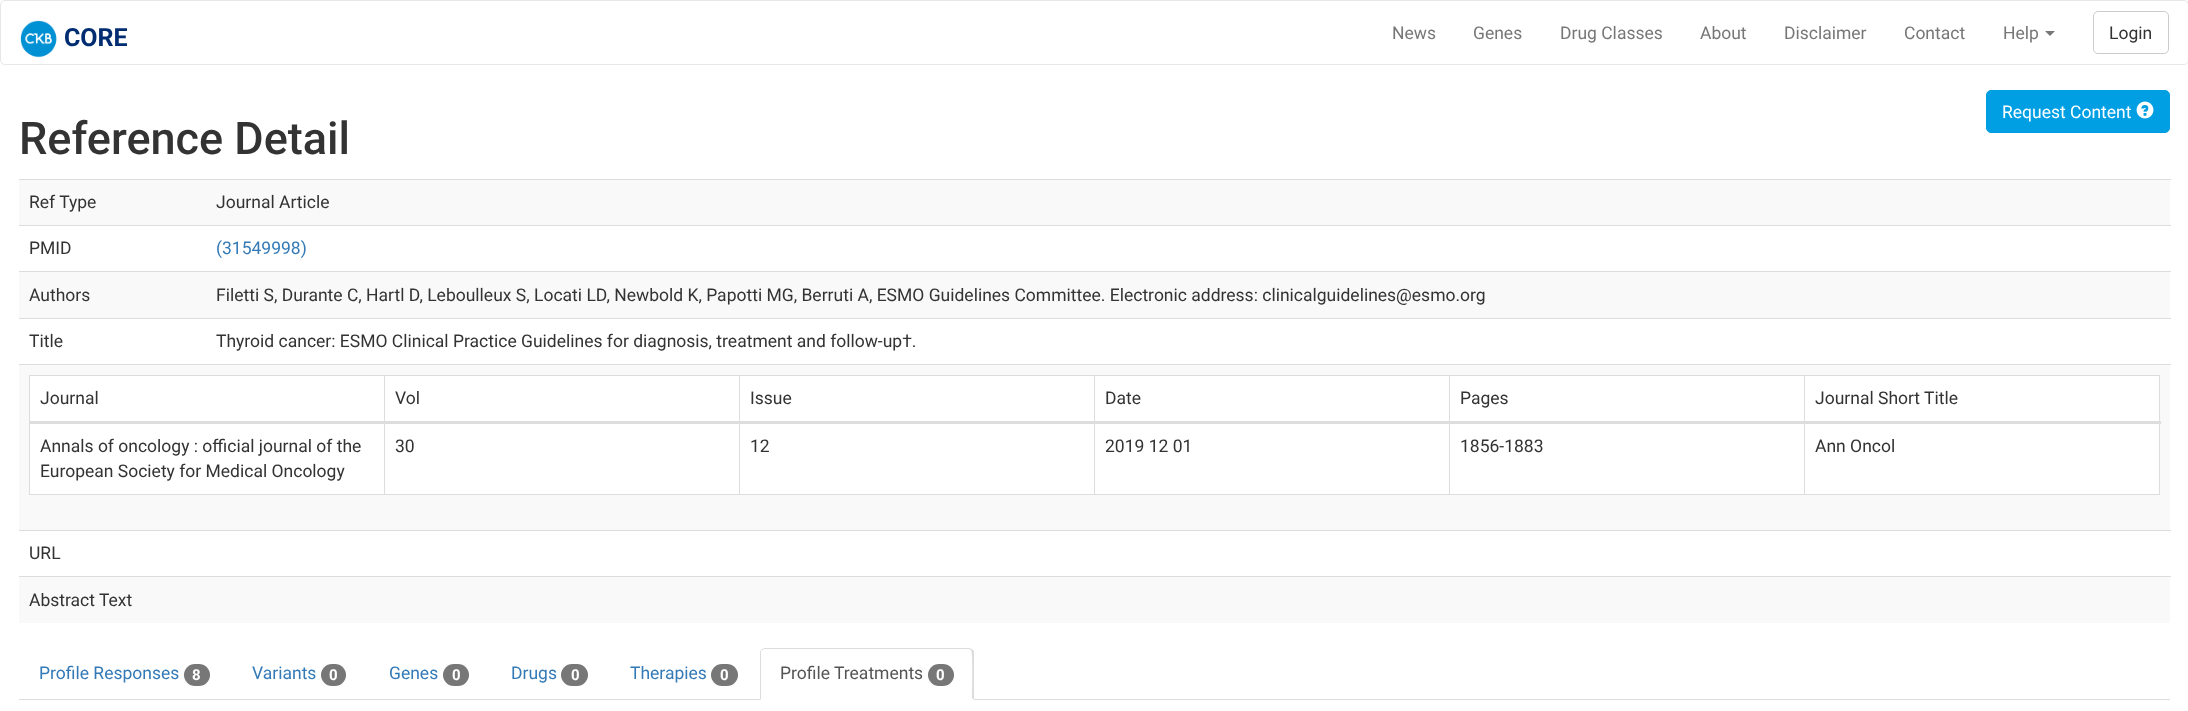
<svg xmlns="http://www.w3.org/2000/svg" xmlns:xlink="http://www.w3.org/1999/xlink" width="2188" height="711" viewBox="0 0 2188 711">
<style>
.cls-1{font:bold 25px Roboto;fill:#002d72}
.cls-2{font:17.5px Roboto;fill:#777777}
.cls-3{font:17.5px Roboto;fill:#333333}
.cls-4{font:17.5px Roboto;fill:#ffffff}
.cls-5{font:500 45px Roboto;fill:#333333}
.cls-6{font:17.5px Roboto;fill:#337ab7}
.cls-7{font:bold 15px Roboto;fill:#ffffff}
.cls-8{font:17.5px Roboto;fill:#555555}
</style>
<rect width="100%" height="100%" fill="#ffffff"/>
<rect fill="none" stroke="#e7e7e7" x="0.5" y="0.5" width="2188" height="64" rx="4.5"/>
<image xlink:href="image0.png" x="20" y="20" width="37" height="38"/>
<path fill="#777777" d="M2045 31H2055L2050 36Z"/>
<rect fill="none" stroke="#cccccc" x="2093.5" y="11.5" width="75" height="42" rx="4.5"/>
<rect fill="#009fe3" stroke="#009fe3" x="1986.5" y="90.5" width="183" height="42" rx="4.5"/>
<image xlink:href="image1.png" x="2136" y="101" width="18" height="18"/>
<rect fill="#f9f9f9" x="19" y="180" width="2151" height="45"/>
<rect fill="#dddddd" x="19" y="179" width="2152" height="1"/>
<rect fill="#dddddd" x="19" y="225" width="2152" height="1"/>
<rect fill="#f9f9f9" x="19" y="272" width="2151" height="46"/>
<rect fill="#dddddd" x="19" y="271" width="2152" height="1"/>
<rect fill="#dddddd" x="19" y="318" width="2152" height="1"/>
<rect fill="#f9f9f9" x="19" y="365" width="2151" height="165"/>
<rect fill="#dddddd" x="19" y="364" width="2152" height="1"/>
<rect fill="#ffffff" x="30" y="376" width="2129" height="118"/>
<rect fill="#dddddd" x="29" y="375" width="2131" height="1"/>
<rect fill="#dddddd" x="2159" y="375" width="1" height="120"/>
<rect fill="#dddddd" x="29" y="494" width="2131" height="1"/>
<rect fill="#dddddd" x="29" y="375" width="1" height="120"/>
<rect fill="#dddddd" x="384" y="375" width="1" height="120"/>
<rect fill="#dddddd" x="739" y="375" width="1" height="120"/>
<rect fill="#dddddd" x="1094" y="375" width="1" height="120"/>
<rect fill="#dddddd" x="1449" y="375" width="1" height="120"/>
<rect fill="#dddddd" x="1804" y="375" width="1" height="120"/>
<rect fill="#dddddd" x="29" y="421" width="2132" height="3"/>
<rect fill="#dddddd" x="19" y="530" width="2152" height="1"/>
<rect fill="#f9f9f9" x="19" y="577" width="2151" height="46"/>
<rect fill="#dddddd" x="19" y="576" width="2152" height="1"/>
<rect fill="#dddddd" x="19" y="699" width="2151" height="1"/>
<rect fill="#777777" x="184" y="664" width="26" height="22" rx="11"/>
<rect fill="#777777" x="321" y="664" width="25" height="22" rx="11"/>
<rect fill="#777777" x="443" y="664" width="26" height="22" rx="11"/>
<rect fill="#777777" x="561" y="664" width="27" height="22" rx="11"/>
<rect fill="#777777" x="711" y="664" width="27" height="22" rx="11"/>
<path fill="#ffffff" d="M765 648H969C972 648 974 650 974 653V700H760V653C760 650 762 648 765 648Z"/>
<path fill="#dddddd" d="M765 648L762 649V650L765 649H969L971 650L972 649L969 648Z"/>
<path fill="#dddddd" d="M972 649L974 651V700L972 698C972 692 973 652 971 650Z"/>
<path fill="#dddddd" d="M760 700L761 699V651L762 650V649C761 650 760 651 760 652Z"/>
<rect fill="#777777" x="928" y="664" width="26" height="22" rx="11"/>
<text class="cls-1" x="64" y="46">CORE</text>
<text class="cls-2" x="1392" y="39">News</text>
<text class="cls-2" x="1473" y="39">Genes</text>
<text class="cls-2" x="1560" y="39">Drug Classes</text>
<text class="cls-2" x="1700" y="39">About</text>
<text class="cls-2" x="1784" y="39">Disclaimer</text>
<text class="cls-2" x="1904" y="39">Contact</text>
<text class="cls-2" x="2003" y="39">Help</text>
<text class="cls-3" x="2109" y="39">Login</text>
<text class="cls-4" x="2002" y="118">Request Content</text>
<text class="cls-5" x="19" y="154">Reference Detail</text>
<text class="cls-3" x="29" y="208">Ref Type</text>
<text class="cls-3" x="216" y="208">Journal Article</text>
<text class="cls-3" x="29" y="254">PMID</text>
<text class="cls-6" x="216" y="254">(31549998)</text>
<text class="cls-3" x="29" y="301">Authors</text>
<text class="cls-3" x="216" y="301">Filetti S, Durante C, Hartl D, Leboulleux S, Locati LD, Newbold K, Papotti MG, Berruti A, ESMO Guidelines Committee. Electronic address: clinicalguidelines@esmo.org</text>
<text class="cls-3" x="29" y="347">Title</text>
<text class="cls-3" x="216" y="347">Thyroid cancer: ESMO Clinical Practice Guidelines for diagnosis, treatment and follow-up†.</text>
<text class="cls-3" x="40" y="404">Journal</text>
<text class="cls-3" x="395" y="404">Vol</text>
<text class="cls-3" x="750" y="404">Issue</text>
<text class="cls-3" x="1105" y="404">Date</text>
<text class="cls-3" x="1460" y="404">Pages</text>
<text class="cls-3" x="1815" y="404">Journal Short Title</text>
<text class="cls-3"><tspan x="40" y="452">Annals of oncology : official journal of the</tspan><tspan x="40" y="477">European Society for Medical Oncology</tspan></text>
<text class="cls-3" x="395" y="452">30</text>
<text class="cls-3" x="750" y="452">12</text>
<text class="cls-3" x="1105" y="452">2019 12 01</text>
<text class="cls-3" x="1460" y="452">1856-1883</text>
<text class="cls-3" x="1815" y="452">Ann Oncol</text>
<text class="cls-3" x="29" y="559">URL</text>
<text class="cls-3" x="29" y="606">Abstract Text</text>
<text class="cls-6" x="39" y="679">Profile Responses</text>
<text class="cls-7" x="192" y="680">8</text>
<text class="cls-6" x="252" y="679">Variants</text>
<text class="cls-7" x="329" y="680">0</text>
<text class="cls-6" x="389" y="679">Genes</text>
<text class="cls-7" x="452" y="680">0</text>
<text class="cls-6" x="511" y="679">Drugs</text>
<text class="cls-7" x="571" y="680">0</text>
<text class="cls-6" x="630" y="679">Therapies</text>
<text class="cls-7" x="720" y="680">0</text>
<text class="cls-8" x="780" y="679">Profile Treatments</text>
<text class="cls-7" x="936" y="680">0</text>
</svg>
